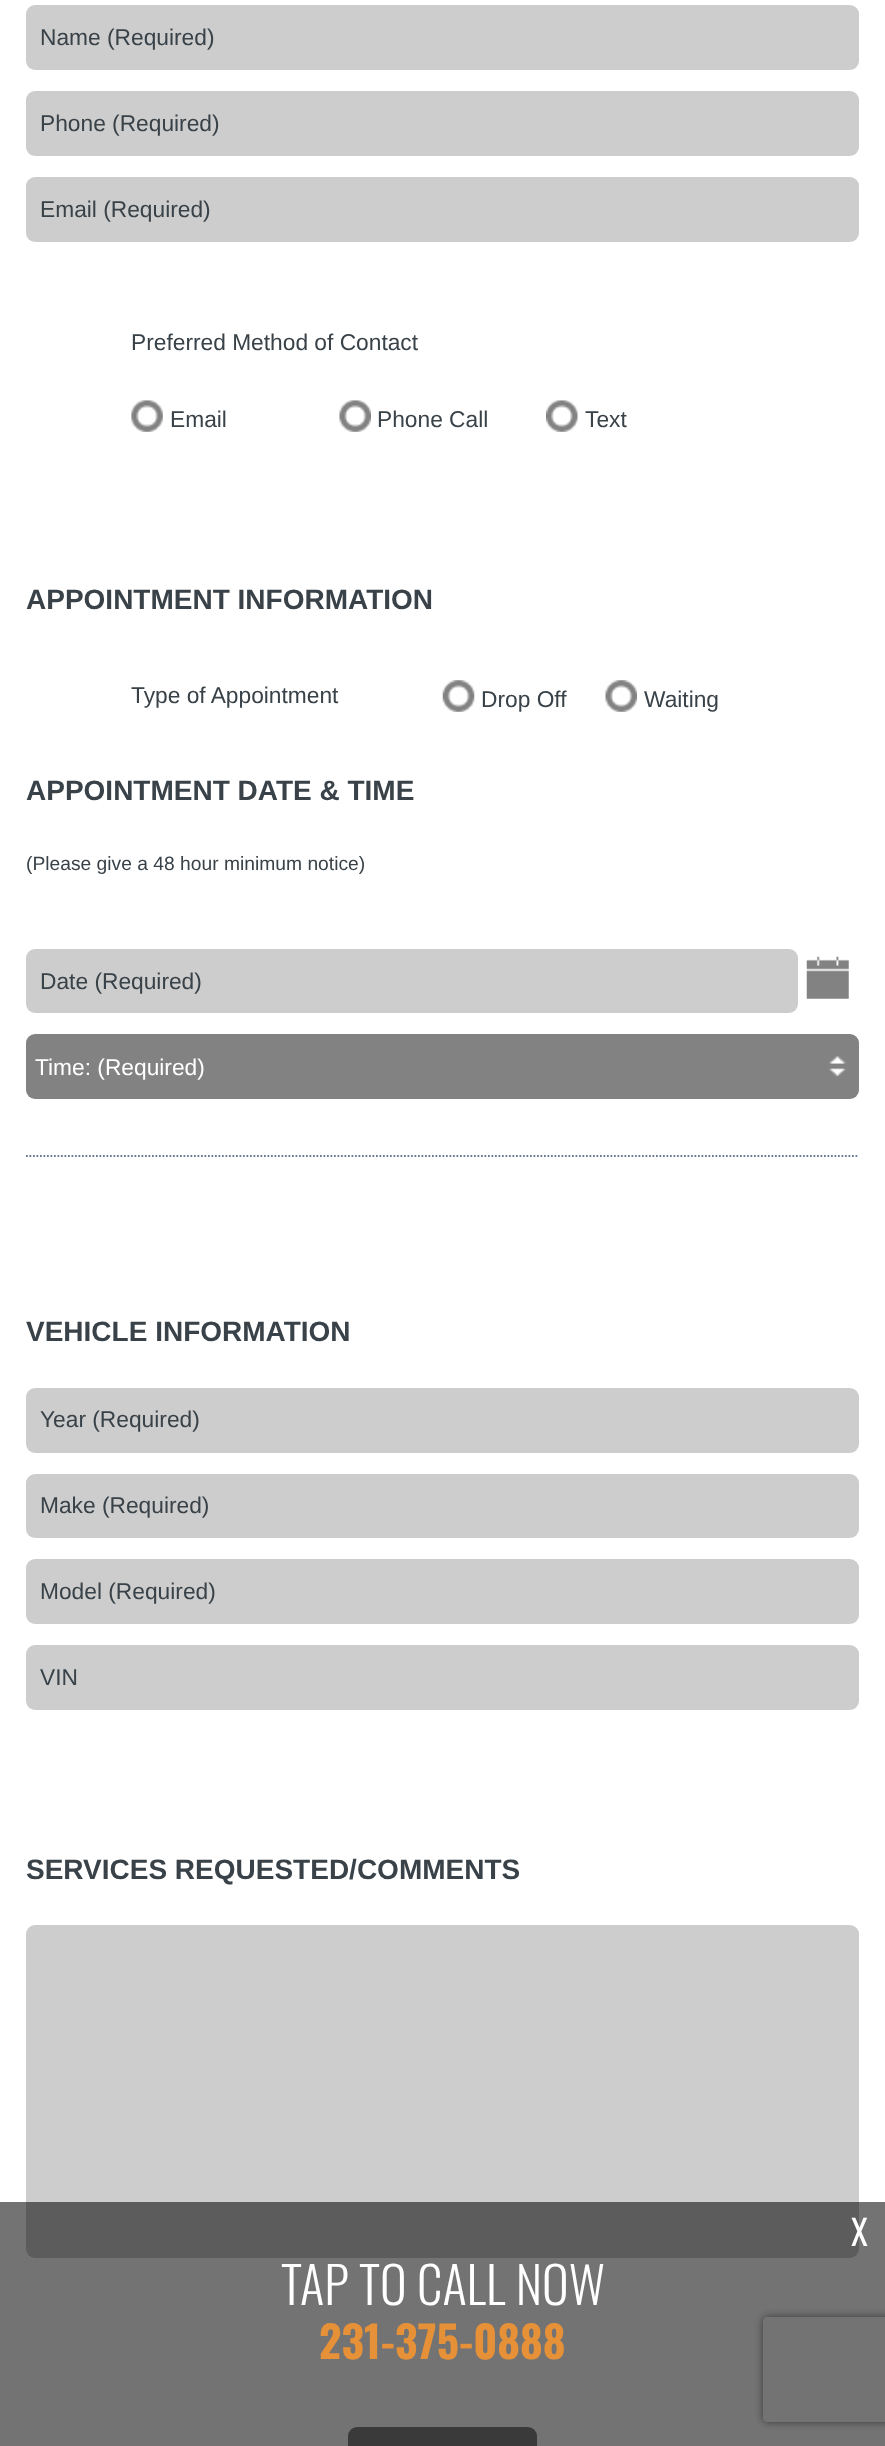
<svg xmlns="http://www.w3.org/2000/svg" xmlns:xlink="http://www.w3.org/1999/xlink" width="885" height="2446" viewBox="0 0 885 2446">
<style>
.cls-1{font:22.75px Liberation Sans;fill:#394248}
.cls-2{font:bold 28px Liberation Sans;fill:#394248}
.cls-3{font:19.25px Liberation Sans;fill:#394248}
.cls-4{font:22.75px Liberation Sans;fill:#ffffff}
.cls-5{font:35px Oswald;fill:#ffffff}
.cls-6{font:300 50.75px Oswald;fill:#ffffff}
.cls-7{font:bold 43.75px Oswald;fill:#e69138}
</style>
<defs>
<clipPath id="clip1"><path d="M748 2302H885V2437H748ZM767 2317H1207C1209 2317 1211 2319 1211 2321V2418C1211 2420 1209 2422 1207 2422H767C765 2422 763 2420 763 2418V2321C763 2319 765 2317 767 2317Z" clip-rule="evenodd"/></clipPath>
</defs>
<rect width="100%" height="100%" fill="#ffffff"/>
<rect fill="#cdcdcd" x="26" y="5" width="833" height="65" rx="9"/>
<rect fill="#cdcdcd" x="26" y="91" width="833" height="65" rx="9"/>
<rect fill="#cdcdcd" x="26" y="177" width="833" height="65" rx="9"/>
<image xlink:href="image0.png" x="131" y="400" width="32" height="32"/>
<image xlink:href="image1.png" x="339" y="400" width="32" height="32"/>
<image xlink:href="image2.png" x="546" y="400" width="32" height="32"/>
<image xlink:href="image3.png" x="442" y="680" width="33" height="32"/>
<image xlink:href="image4.png" x="605" y="680" width="32" height="32"/>
<rect fill="#cdcdcd" x="26" y="949" width="772" height="64" rx="9"/>
<image xlink:href="image5.png" x="806" y="956" width="43" height="43"/>
<rect fill="#828282" x="26" y="1034" width="833" height="65" rx="9"/>
<image xlink:href="image6.png" x="829" y="1056" width="17" height="21"/>
<path fill="none" stroke="#687a95" stroke-width="1.8" stroke-dasharray="1.75 1.75" d="M26 1156H859"/>
<rect fill="#cdcdcd" x="26" y="1388" width="833" height="65" rx="9"/>
<rect fill="#cdcdcd" x="26" y="1474" width="833" height="64" rx="9"/>
<rect fill="#cdcdcd" x="26" y="1559" width="833" height="65" rx="9"/>
<rect fill="#cdcdcd" x="26" y="1645" width="833" height="65" rx="9"/>
<rect fill="#cdcdcd" x="26" y="1925" width="833" height="333" rx="9"/>
<rect fill="#828282" x="348" y="2427" width="189" height="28" rx="9"/>
<g clip-path="url(#clip1)">
<rect fill="#808080" filter="blur(4.5px)" x="763" y="2317" width="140" height="105" rx="4"/>
</g>
<rect fill="#000000" fill-opacity="0.55" x="0" y="2202" width="885" height="244"/>
<text class="cls-1" x="40" y="45">Name (Required)</text>
<text class="cls-1" x="40" y="131">Phone (Required)</text>
<text class="cls-1" x="40" y="217">Email (Required)</text>
<text class="cls-1" x="131" y="350">Preferred Method of Contact</text>
<text class="cls-1" x="170" y="427">Email</text>
<text class="cls-1" x="377" y="427">Phone Call</text>
<text class="cls-1" x="585" y="427">Text</text>
<text class="cls-2" x="26" y="609">APPOINTMENT INFORMATION</text>
<text class="cls-1" x="131" y="703">Type of Appointment</text>
<text class="cls-1" x="481" y="707">Drop Off</text>
<text class="cls-1" x="644" y="707">Waiting</text>
<text class="cls-2" x="26" y="800">APPOINTMENT DATE &amp; TIME</text>
<text class="cls-3" x="26" y="870">(Please give a 48 hour minimum notice)</text>
<text class="cls-1" x="40" y="989">Date (Required)</text>
<text class="cls-4" x="35" y="1075">Time: (Required)</text>
<text class="cls-2" x="26" y="1341">VEHICLE INFORMATION</text>
<text class="cls-1" x="40" y="1427">Year (Required)</text>
<text class="cls-1" x="40" y="1513">Make (Required)</text>
<text class="cls-1" x="40" y="1599">Model (Required)</text>
<text class="cls-1" x="40" y="1685">VIN</text>
<text class="cls-2" x="26" y="1879">SERVICES REQUESTED/COMMENTS</text>
<text class="cls-5" x="851" y="2246">X</text>
<text class="cls-6" x="281" y="2305">TAP TO CALL NOW</text>
<text class="cls-7" x="319" y="2359">231-375-0888</text>
</svg>
